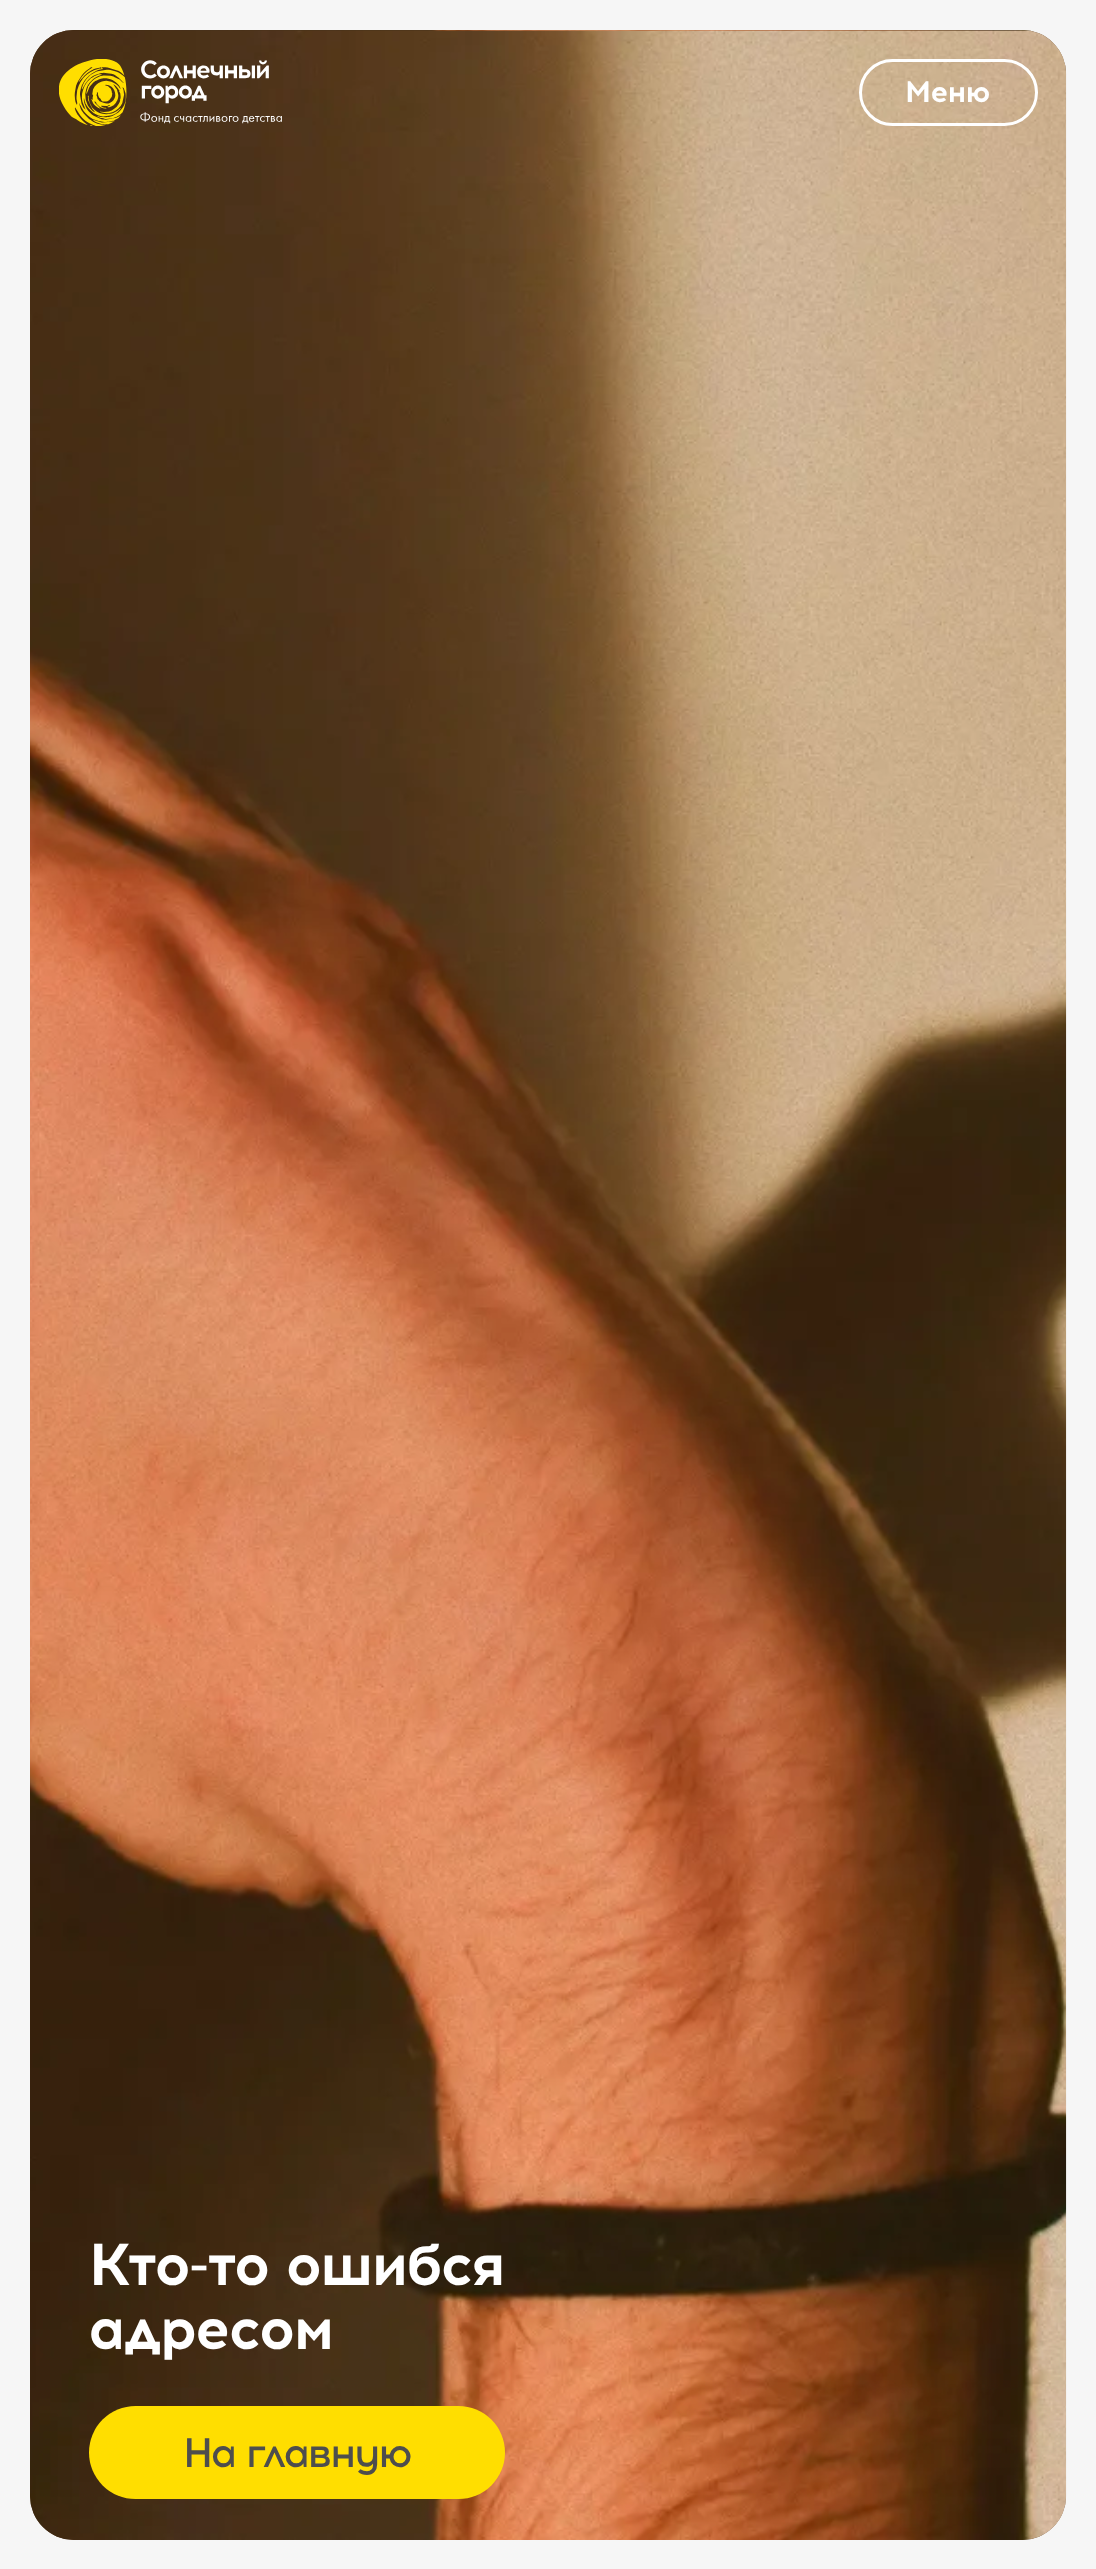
<svg xmlns="http://www.w3.org/2000/svg" xmlns:xlink="http://www.w3.org/1999/xlink" width="1096" height="2569" viewBox="0 0 1096 2569">
<style>
.cls-1{font:bold 29.5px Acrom;letter-spacing:-1px;fill:#ffffff}
.cls-2{font:bold 59px Acrom;letter-spacing:-2.5px;fill:#ffffff}
.cls-3{font:500 41.25px Acrom;letter-spacing:-2.5px;fill:#4e4e4d}
</style>
<rect width="100%" height="100%" fill="#f6f6f6"/>
<rect fill="#50331b" x="30" y="30" width="1036" height="2510" rx="44"/>
<image xlink:href="image1.png" x="30" y="30" width="1037" height="2510"/>
<image xlink:href="image0.png" x="59" y="59" width="223" height="67"/>
<rect fill="none" stroke="#ffffff" stroke-width="3" x="860.5" y="60.5" width="176" height="64" rx="32"/>
<rect fill="#ffde00" x="89" y="2406" width="416" height="93" rx="46.5"/>
<text class="cls-1" x="905" y="102">Меню</text>
<text class="cls-2"><tspan x="88" y="2285">Кто-то ошибся</tspan><tspan x="88" y="2349">адресом</tspan></text>
<text class="cls-3" x="183" y="2467">На главную</text>
</svg>
